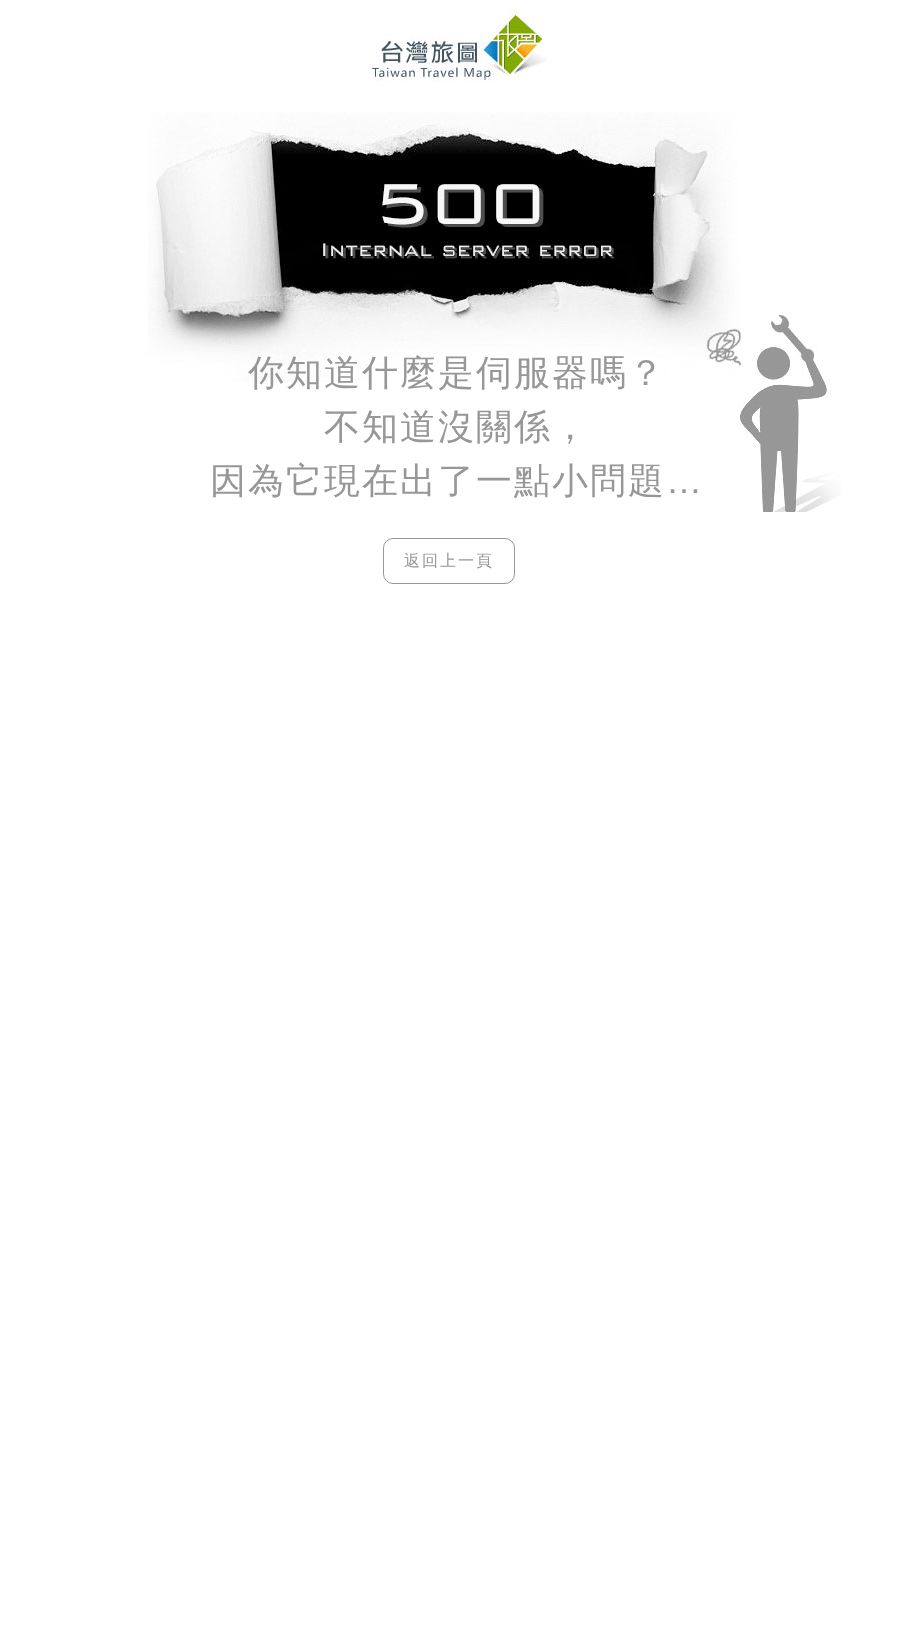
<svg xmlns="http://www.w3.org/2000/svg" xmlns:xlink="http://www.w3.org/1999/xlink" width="913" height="1629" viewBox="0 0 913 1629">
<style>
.cls-1{font:500 36px WenQuanYi Zen Hei;letter-spacing:2px;fill:#979797}
.cls-2{font:36px Liberation Sans;letter-spacing:2px;fill:#979797}
.cls-3{font:500 16px WenQuanYi Zen Hei;letter-spacing:2px;fill:#979797}
</style>
<rect width="100%" height="100%" fill="#ffffff"/>
<image xlink:href="image0.png" x="368" y="10" width="179" height="72"/>
<image xlink:href="image1.png" x="148" y="112" width="693" height="400"/>
<rect fill="none" stroke="#979797" x="383.5" y="538.5" width="131" height="45" rx="9.5"/>
<text class="cls-1" x="248" y="385">你知道什麼是伺服器嗎？</text>
<text class="cls-1" x="324" y="439">不知道沒關係，</text>
<text class="cls-1" x="210" y="493">因為它現在出了一點小問題</text>
<text class="cls-2" x="666" y="493">…</text>
<text class="cls-3" x="404" y="566">返回上一頁</text>
</svg>
